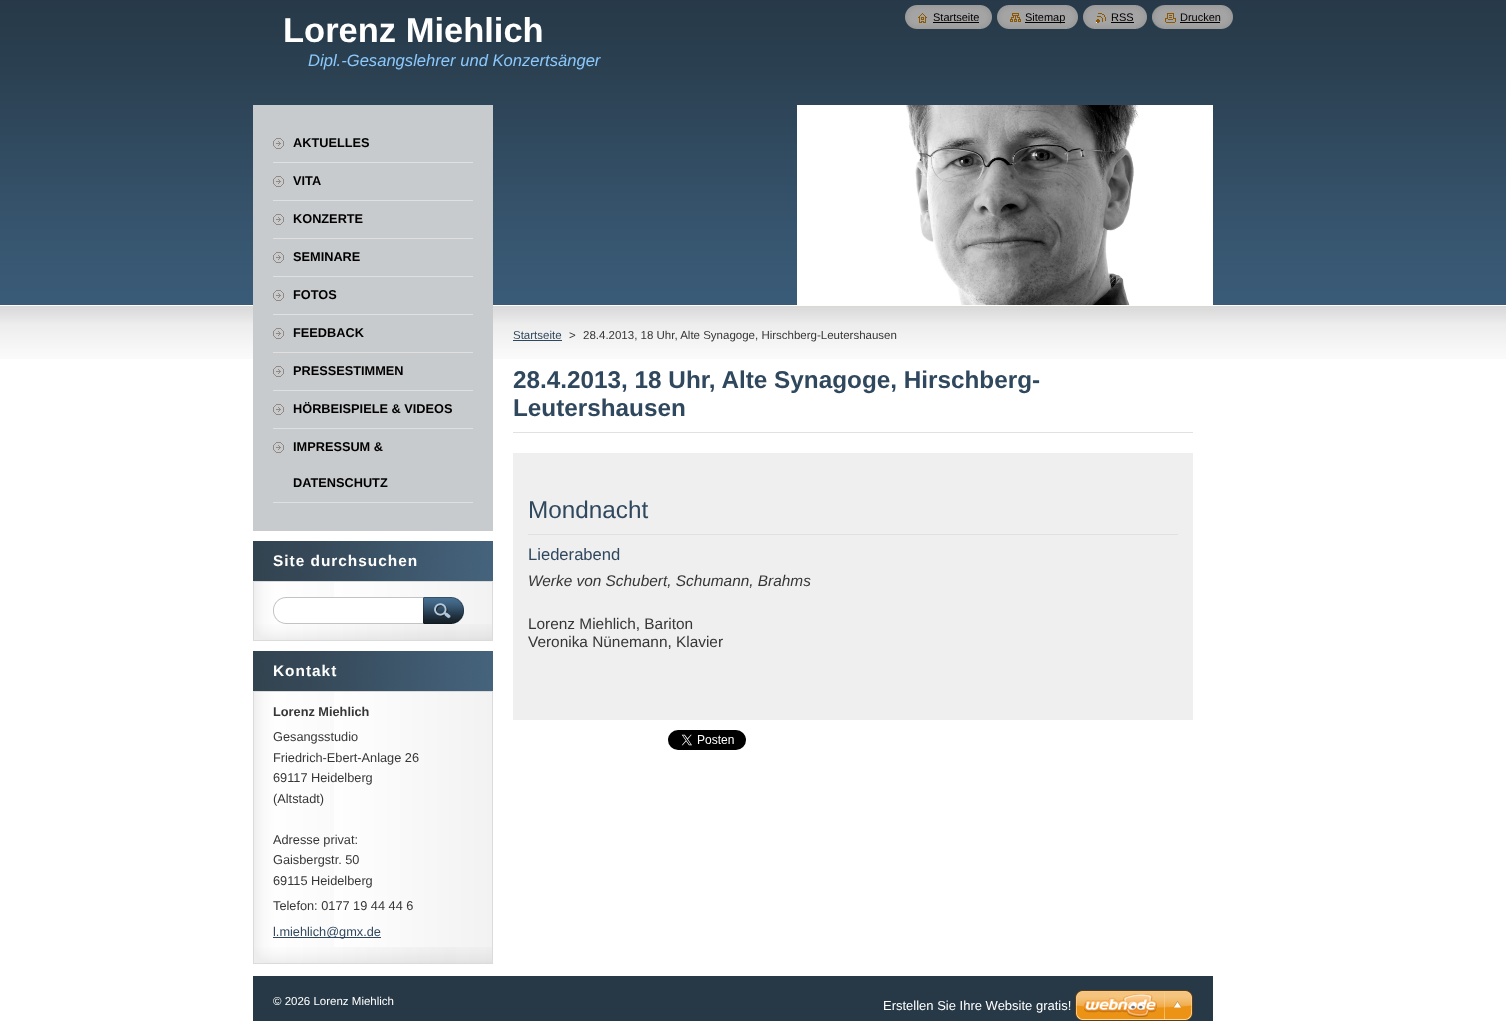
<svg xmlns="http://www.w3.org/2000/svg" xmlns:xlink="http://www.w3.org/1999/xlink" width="1506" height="1021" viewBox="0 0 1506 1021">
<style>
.cls-1{font:bold 34.5px Liberation Sans;fill:#ffffff}
.cls-2{font:italic 16.6px Liberation Sans;fill:#8cc8fb}
.cls-3{font:11px Liberation Sans;fill:#000000}
.cls-4{font:bold 12.75px Liberation Sans;fill:#000000}
.cls-5{font:bold 15.4px Liberation Sans;letter-spacing:1px;fill:#ffffff}
.cls-6{font:bold 12.75px Liberation Sans;fill:#363636}
.cls-7{font:12.75px Liberation Sans;fill:#363636}
.cls-8{font:12.75px Liberation Sans;fill:#30485e}
.cls-9{font:11.5px Liberation Sans;fill:#30485e}
.cls-10{font:11.5px Liberation Sans;fill:#363636}
.cls-11{font:bold 24.3px Liberation Sans;fill:#30485e}
.cls-12{font:24.3px Liberation Sans;fill:#30485e}
.cls-13{font:16.6px Liberation Sans;fill:#30485e}
.cls-14{font:italic 15.4px Liberation Sans;fill:#363636}
.cls-15{font:15.4px Liberation Sans;fill:#363636}
.cls-16{font:11.5px Liberation Sans;fill:#ffffff}
.cls-17{font:13px Liberation Sans;fill:#ffffff}
</style>
<rect width="100%" height="100%" fill="#ffffff"/>
<image xlink:href="image0.png" x="0" y="0" width="1506" height="359"/>
<image xlink:href="image1.png" x="905" y="5" width="13" height="24"/>
<image xlink:href="image2.png" x="918" y="5" width="74" height="24"/>
<image xlink:href="image3.png" x="918" y="13" width="9" height="10"/>
<rect fill="#000000" x="933" y="22" width="46" height="1"/>
<image xlink:href="image1.png" x="997" y="5" width="13" height="24"/>
<image xlink:href="image4.png" x="1010" y="5" width="68" height="24"/>
<image xlink:href="image5.png" x="1010" y="13" width="11" height="9"/>
<rect fill="#000000" x="1025" y="22" width="40" height="1"/>
<image xlink:href="image1.png" x="1083" y="5" width="13" height="24"/>
<image xlink:href="image6.png" x="1096" y="5" width="51" height="24"/>
<image xlink:href="image7.png" x="1096" y="13" width="10" height="10"/>
<rect fill="#000000" x="1111" y="22" width="23" height="1"/>
<image xlink:href="image8.png" x="1152" y="5" width="14" height="24"/>
<image xlink:href="image9.png" x="1166" y="5" width="67" height="24"/>
<image xlink:href="image10.png" x="1165" y="13" width="11" height="10"/>
<rect fill="#000000" x="1180" y="22" width="40" height="1"/>
<rect fill="#c8cbcd" x="253" y="105" width="240" height="20"/>
<rect fill="#c8cbcd" x="253" y="125" width="240" height="406"/>
<rect fill="#e0e0e0" x="273" y="162" width="200" height="1"/>
<image xlink:href="image11.png" x="273" y="138" width="11" height="11"/>
<rect fill="#e0e0e0" x="273" y="200" width="200" height="1"/>
<image xlink:href="image11.png" x="273" y="176" width="11" height="11"/>
<rect fill="#e0e0e0" x="273" y="238" width="200" height="1"/>
<image xlink:href="image11.png" x="273" y="214" width="11" height="11"/>
<rect fill="#e0e0e0" x="273" y="276" width="200" height="1"/>
<image xlink:href="image11.png" x="273" y="252" width="11" height="11"/>
<rect fill="#e0e0e0" x="273" y="314" width="200" height="1"/>
<image xlink:href="image11.png" x="273" y="290" width="11" height="11"/>
<rect fill="#e0e0e0" x="273" y="352" width="200" height="1"/>
<image xlink:href="image11.png" x="273" y="328" width="11" height="11"/>
<rect fill="#e0e0e0" x="273" y="390" width="200" height="1"/>
<image xlink:href="image11.png" x="273" y="366" width="11" height="11"/>
<rect fill="#e0e0e0" x="273" y="428" width="200" height="1"/>
<image xlink:href="image11.png" x="273" y="404" width="11" height="11"/>
<rect fill="#e0e0e0" x="273" y="502" width="200" height="1"/>
<image xlink:href="image11.png" x="273" y="442" width="11" height="11"/>
<image xlink:href="image12.png" x="253" y="624" width="240" height="17"/>
<image xlink:href="image13.png" x="253" y="541" width="240" height="40"/>
<image xlink:href="image14.png" x="253" y="582" width="240" height="42"/>
<rect fill="#dbdbdb" x="253" y="581" width="240" height="1"/>
<image xlink:href="image15.png" x="273" y="597" width="150" height="27"/>
<image xlink:href="image16.png" x="423" y="597" width="41" height="27"/>
<image xlink:href="image12.png" x="253" y="947" width="240" height="17"/>
<image xlink:href="image13.png" x="253" y="651" width="240" height="40"/>
<image xlink:href="image17.png" x="253" y="692" width="240" height="255"/>
<rect fill="#dbdbdb" x="253" y="691" width="240" height="1"/>
<rect fill="#30485e" x="273" y="937" width="108" height="1"/>
<image xlink:href="image18.png" x="797" y="105" width="416" height="200"/>
<rect fill="#30485e" x="513" y="340" width="49" height="1"/>
<rect fill="#e1e1e1" x="513" y="432" width="680" height="1"/>
<rect fill="#efefef" x="513" y="453" width="680" height="267"/>
<rect fill="#e1e1e1" x="528" y="534" width="650" height="1"/>
<image xlink:href="image19.png" x="668" y="730" width="78" height="20"/>
<rect fill="#273947" x="253" y="976" width="960" height="45"/>
<image xlink:href="image20.png" x="1075" y="990" width="118" height="31"/>
<text class="cls-1" x="283" y="42">Lorenz Miehlich</text>
<text class="cls-2" x="308" y="66">Dipl.-Gesangslehrer und Konzertsänger</text>
<text class="cls-3" x="933" y="21">Startseite</text>
<text class="cls-3" x="1025" y="21">Sitemap</text>
<text class="cls-3" x="1111" y="21">RSS</text>
<text class="cls-3" x="1180" y="21">Drucken</text>
<text class="cls-4" x="293" y="147">AKTUELLES</text>
<text class="cls-4" x="293" y="185">VITA</text>
<text class="cls-4" x="293" y="223">KONZERTE</text>
<text class="cls-4" x="293" y="261">SEMINARE</text>
<text class="cls-4" x="293" y="299">FOTOS</text>
<text class="cls-4" x="293" y="337">FEEDBACK</text>
<text class="cls-4" x="293" y="375">PRESSESTIMMEN</text>
<text class="cls-4" x="293" y="413">HÖRBEISPIELE &amp; VIDEOS</text>
<text class="cls-4" x="293" y="451">IMPRESSUM &amp;</text>
<text class="cls-4" x="293" y="487">DATENSCHUTZ</text>
<text class="cls-5" x="273" y="566">Site durchsuchen</text>
<text class="cls-5" x="273" y="676">Kontakt</text>
<text class="cls-6" x="273" y="716">Lorenz Miehlich</text>
<text class="cls-7"><tspan x="273" y="741">Gesangsstudio</tspan><tspan x="273" y="762">Friedrich-Ebert-Anlage 26</tspan><tspan x="273" y="782">69117 Heidelberg</tspan><tspan x="273" y="803">(Altstadt)</tspan></text>
<text class="cls-7"><tspan x="273" y="844">Adresse privat:</tspan><tspan x="273" y="864">Gaisbergstr. 50</tspan><tspan x="273" y="885">69115 Heidelberg</tspan><tspan x="273" y="910">Telefon: 0177 19 44 44 6</tspan></text>
<text class="cls-8" x="273" y="936">l.miehlich@gmx.de</text>
<text class="cls-9" x="513" y="339">Startseite</text>
<text class="cls-10" x="569" y="339">&gt;</text>
<text class="cls-10" x="583" y="339">28.4.2013, 18 Uhr, Alte Synagoge, Hirschberg-Leutershausen</text>
<text class="cls-11"><tspan x="513" y="388">28.4.2013, 18 Uhr, Alte Synagoge, Hirschberg-</tspan><tspan x="513" y="416">Leutershausen</tspan></text>
<text class="cls-12" x="528" y="518">Mondnacht</text>
<text class="cls-13" x="528" y="560">Liederabend</text>
<text class="cls-14" x="528" y="586">Werke von Schubert, Schumann, Brahms</text>
<text class="cls-15"><tspan x="528" y="629">Lorenz Miehlich, Bariton</tspan><tspan x="528" y="647">Veronika Nünemann, Klavier</tspan></text>
<text class="cls-16" x="273" y="1005">© 2026 Lorenz Miehlich</text>
<text class="cls-17" x="883" y="1010">Erstellen Sie Ihre Website gratis!</text>
</svg>
